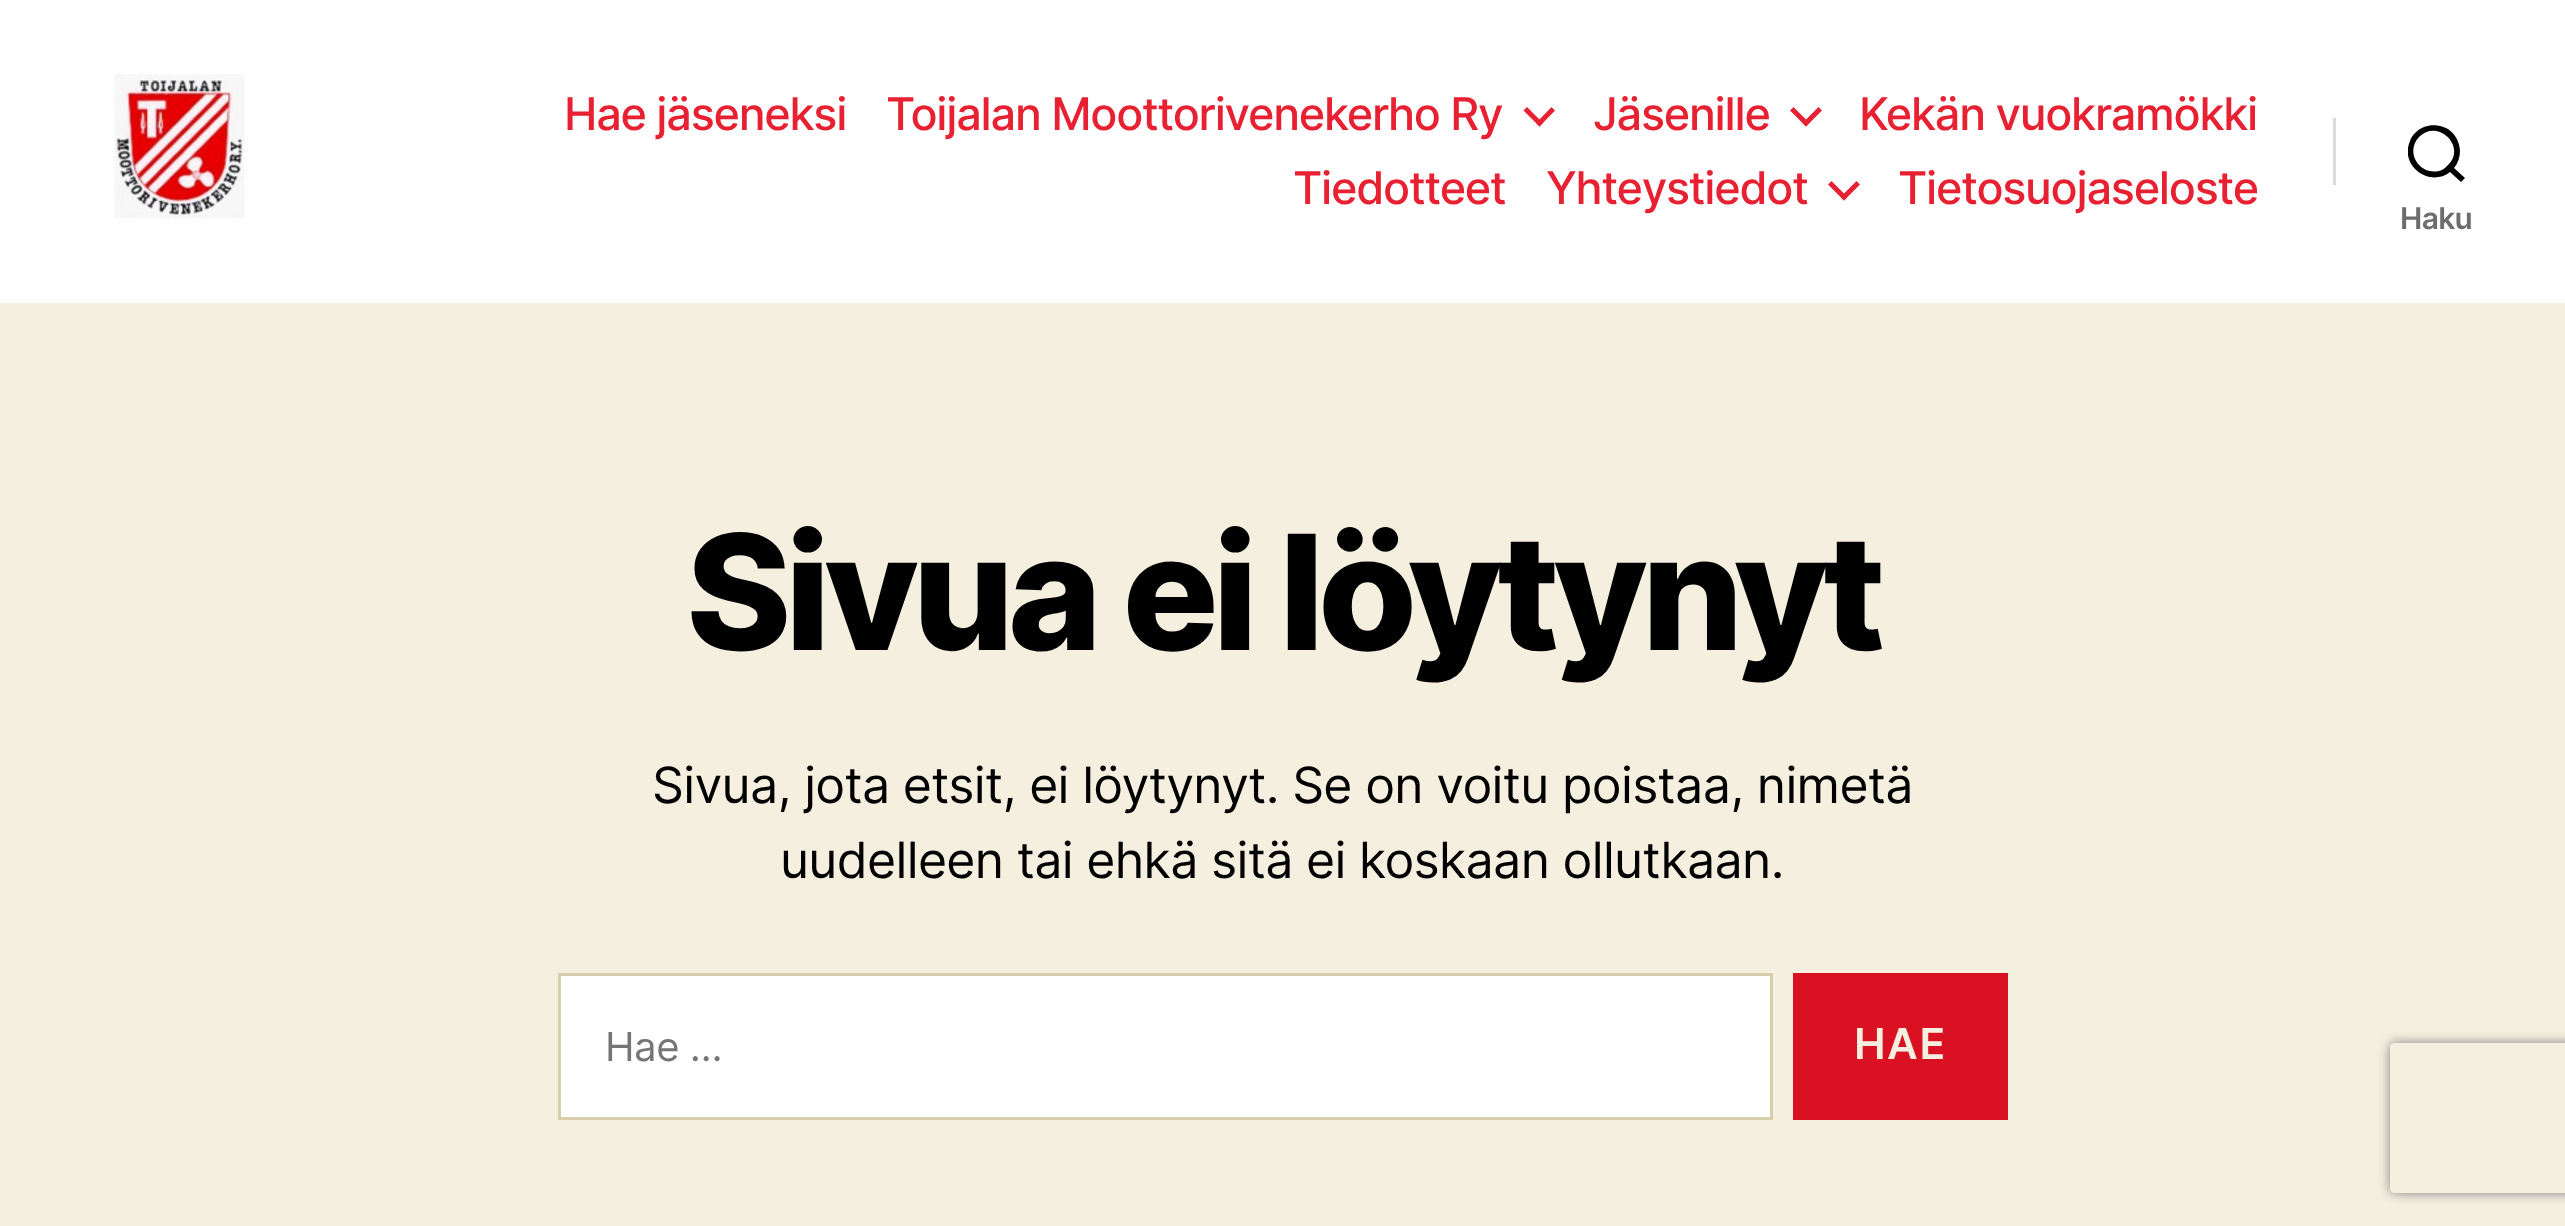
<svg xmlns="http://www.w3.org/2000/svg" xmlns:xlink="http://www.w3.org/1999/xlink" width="2565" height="1226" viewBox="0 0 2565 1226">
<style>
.cls-1{font:500 45px Inter;letter-spacing:-1.25px;fill:#e72131}
.cls-2{font:600 30px Inter;letter-spacing:-0.68px;fill:#6d6d6d}
.cls-3{font:800 160px Inter;letter-spacing:-6.6px;fill:#000000}
.cls-4{font:50px Inter;letter-spacing:-0.68px;fill:#000000}
.cls-5{font:40px Inter;letter-spacing:-0.5px;fill:#757575}
.cls-6{font:600 42.5px Inter;letter-spacing:1.5px;fill:#f5efe0}
</style>
<defs>
<clipPath id="clip1"><rect x="2408" y="123" width="57" height="62"/></clipPath>
<clipPath id="clip2"><path d="M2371 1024H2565V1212H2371ZM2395 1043H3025C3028 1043 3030 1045 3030 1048V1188C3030 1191 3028 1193 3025 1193H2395C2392 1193 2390 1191 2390 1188V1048C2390 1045 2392 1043 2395 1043Z" clip-rule="evenodd"/></clipPath>
</defs>
<rect width="100%" height="100%" fill="#f5efe0"/>
<rect fill="#ffffff" x="0" y="0" width="2565" height="303"/>
<image xlink:href="image0.png" x="113" y="74" width="135" height="145"/>
<path fill="#e72131" d="M1523.5 110.5L1527 107L1543 123L1539.5 126.5Z"/>
<path fill="#e72131" d="M1536 123L1551.5 107L1555 110.5L1539.5 126.5Z"/>
<path fill="#e72131" d="M1790 110.5L1793.5 107L1809.5 123L1806 126.5Z"/>
<path fill="#e72131" d="M1802.5 123L1818.5 107L1822 110.5L1806 126.5Z"/>
<path fill="#e72131" d="M1828 184.5L1831.5 181L1847.5 197L1844 200.5Z"/>
<path fill="#e72131" d="M1840.5 197L1856.5 181L1860 184.5L1844 200.5Z"/>
<rect fill="#dbdbdb" x="2333" y="118" width="3" height="67"/>
<g clip-path="url(#clip1)">
<path fill="#000000" d="M2454 168L2465 178L2461 182L2450 172C2430 188 2399 166 2410 141C2412 135 2417 130 2424 127C2432 124 2441 125 2448 129C2461 138 2464 156 2454 168ZM2448 165C2467 147 2438 118 2419 137C2404 153 2421 178 2442 170C2444 169 2446 167 2448 165Z"/>
</g>
<rect fill="#ffffff" stroke="#d7cfab" stroke-width="3" x="559.5" y="974.5" width="1212" height="144"/>
<rect fill="#d91122" x="1793" y="973" width="215" height="147"/>
<g clip-path="url(#clip2)">
<rect fill="#808080" filter="blur(6px)" x="2390" y="1043" width="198" height="150" rx="5"/>
</g>
<text class="cls-1" x="564" y="130">Hae jäseneksi</text>
<text class="cls-1" x="886" y="130">Toijalan Moottorivenekerho Ry</text>
<text class="cls-1" x="1593" y="130">Jäsenille</text>
<text class="cls-1" x="1859" y="130">Kekän vuokramökki</text>
<text class="cls-1" x="1293" y="204">Tiedotteet</text>
<text class="cls-1" x="1546" y="204">Yhteystiedot</text>
<text class="cls-1" x="1898" y="204">Tietosuojaseloste</text>
<text class="cls-2" x="2400" y="229">Haku</text>
<text class="cls-3" x="686" y="650">Sivua ei löytynyt</text>
<text class="cls-4" x="652" y="803">Sivua, jota etsit, ei löytynyt. Se on voitu poistaa, nimetä</text>
<text class="cls-4" x="780" y="878">uudelleen tai ehkä sitä ei koskaan ollutkaan.</text>
<text class="cls-5" x="605" y="1061">Hae …</text>
<text class="cls-6" x="1854" y="1059">HAE</text>
</svg>
